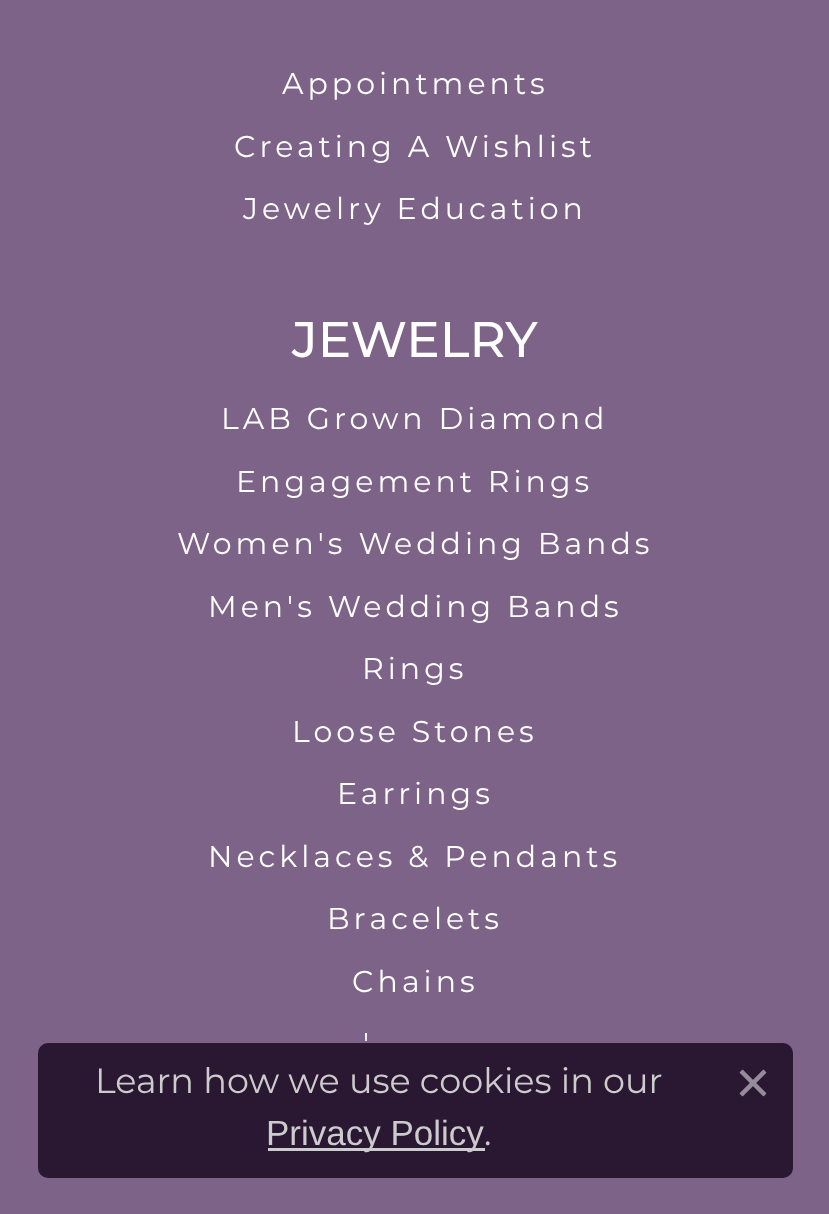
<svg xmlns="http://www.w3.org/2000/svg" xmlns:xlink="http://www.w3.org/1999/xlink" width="829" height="1214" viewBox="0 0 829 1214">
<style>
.cls-1{font:30px Montserrat;letter-spacing:4px;fill:#ffffff}
.cls-2{font:500 50px Montserrat;fill:#ffffff}
.cls-3{font:35px Montserrat;fill:#cccccc}
.cls-4{font:35px Liberation Sans;fill:#cccccc}
</style>
<rect width="100%" height="100%" fill="#7d6388"/>
<rect fill="#210e29" fill-opacity="0.9" x="38" y="1043" width="755" height="135" rx="10"/>
<rect fill="#cccccc" x="268" y="1148" width="217" height="3"/>
<image xlink:href="image0.png" x="739" y="1069" width="28" height="28"/>
<text class="cls-1" x="282" y="94">Appointments</text>
<text class="cls-1" x="234" y="157">Creating A Wishlist</text>
<text class="cls-1" x="243" y="219">Jewelry Education</text>
<text class="cls-2" x="292" y="357">JEWELRY</text>
<text class="cls-1" x="221" y="429">LAB Grown Diamond</text>
<text class="cls-1" x="236" y="492">Engagement Rings</text>
<text class="cls-1" x="177" y="554">Women's Wedding Bands</text>
<text class="cls-1" x="208" y="617">Men's Wedding Bands</text>
<text class="cls-1" x="362" y="679">Rings</text>
<text class="cls-1" x="292" y="742">Loose Stones</text>
<text class="cls-1" x="337" y="804">Earrings</text>
<text class="cls-1" x="208" y="867">Necklaces &amp; Pendants</text>
<text class="cls-1" x="327" y="929">Bracelets</text>
<text class="cls-1" x="352" y="992">Chains</text>
<text class="cls-1" x="363" y="1054">'</text>
<text class="cls-3" x="95" y="1093">Learn how we use cookies in our</text>
<text class="cls-4" x="266" y="1145">Privacy Policy</text>
<text class="cls-3" x="484" y="1145">.</text>
</svg>
